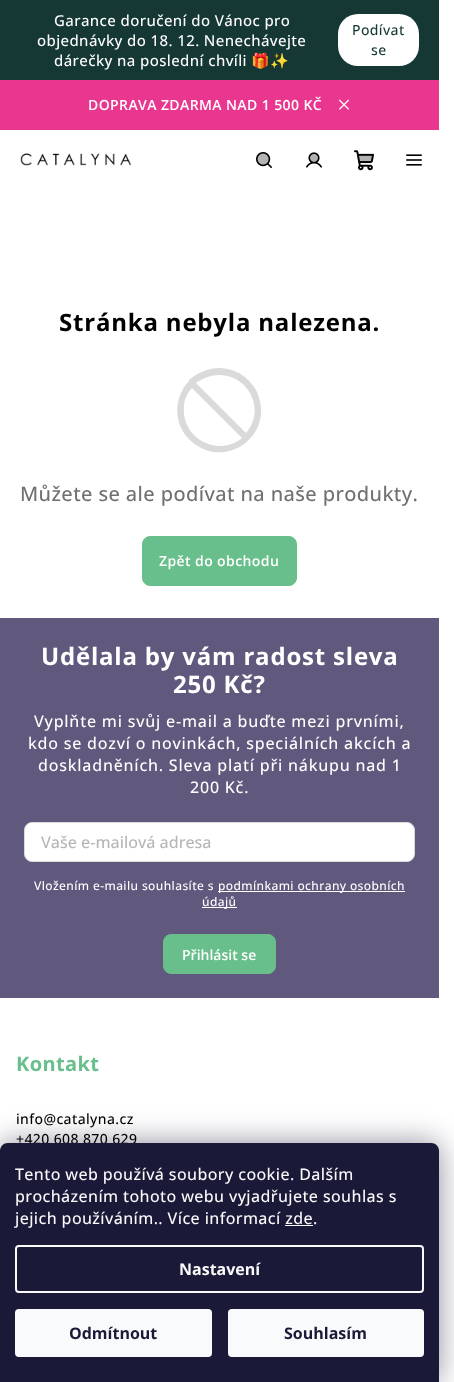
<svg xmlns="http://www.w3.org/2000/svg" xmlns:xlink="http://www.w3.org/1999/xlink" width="454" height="1382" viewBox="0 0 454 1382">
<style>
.cls-1{font:500 15px Open Sans;letter-spacing:0.4px;fill:#ffffff}
.cls-2{font:15px Noto Color Emoji;letter-spacing:0.4px;fill:#ffffff}
.cls-3{font:500 14px Open Sans;letter-spacing:0.4px;fill:#163835}
.cls-4{font:600 14px Open Sans;letter-spacing:0.4px;fill:#ffffff}
.cls-5{font:bold 24px Open Sans;letter-spacing:0.8px;fill:#000000}
.cls-6{font:500 20px Open Sans;letter-spacing:0.4px;fill:#707070}
.cls-7{font:bold 24px Open Sans;letter-spacing:0.8px;fill:#ffffff}
.cls-8{font:500 16px Open Sans;letter-spacing:0.8px;fill:#ffffff}
.cls-9{font:500 16.1px Open Sans;fill:#b6b6b6}
.cls-10{font:500 12px Open Sans;letter-spacing:0.4px;fill:#ffffff}
.cls-11{font:600 14px Open Sans;fill:#ffffff}
.cls-12{font:bold 20px Open Sans;letter-spacing:0.4px;fill:#68bf8b}
.cls-13{font:500 14px Open Sans;letter-spacing:0.4px;fill:#000000}
.cls-14{font:500 16px Open Sans;letter-spacing:0.4px;fill:#f8fafb}
.cls-15{font:bold 16px Open Sans;fill:#f8fafb}
.cls-16{font:bold 16px Open Sans;fill:#1a1937}
</style>
<rect width="100%" height="100%" fill="#ffffff"/>
<rect fill="#163835" x="0" y="0" width="439" height="80"/>
<rect fill="#ffffff" x="338" y="14" width="81" height="52" rx="20"/>
<rect fill="#e9368e" x="0" y="80" width="439" height="50"/>
<image xlink:href="image0.png" x="339" y="99" width="10" height="11"/>
<image xlink:href="image1.png" x="20" y="153" width="112" height="13"/>
<image xlink:href="image2.png" x="256" y="152" width="16" height="16"/>
<image xlink:href="image3.png" x="257" y="153" width="12" height="12"/>
<image xlink:href="image4.png" x="306" y="152" width="16" height="16"/>
<rect fill="#000000" fill-opacity="0.3" x="310" y="154" width="8" height="8"/>
<image xlink:href="image5.png" x="354" y="150" width="20" height="21"/>
<rect fill="#000000" fill-opacity="0.3" x="359" y="155" width="13" height="7"/>
<image xlink:href="image6.png" x="406" y="154" width="16" height="12"/>
<path fill="#dadada" d="M219 368C208 368 197 373 189 380V381C173 398 173 425 191 441C219 467 263 445 261 408C260 398 257 389 250 382C242 373 231 368 219 368ZM219 375C249 375 266 410 246 433L196 383C203 378 211 375 219 375ZM192 388L242 438C218 458 181 438 184 407C184 400 187 393 192 388Z"/>
<rect fill="#68bf8b" stroke="#68bf8b" x="142.5" y="536.5" width="154" height="49" rx="7.5"/>
<rect fill="#61597d" x="0" y="618" width="439" height="380"/>
<rect fill="#ffffff" stroke="#dadada" x="24.5" y="822.5" width="390" height="39" rx="7.5"/>
<rect fill="#ffffff" x="218" y="891" width="187" height="1"/>
<rect fill="#ffffff" x="202" y="907" width="35" height="1"/>
<rect fill="#68bf8b" stroke="#68bf8b" x="163.5" y="934.5" width="112" height="39" rx="7.5"/>
<rect fill="#1b1939" fill-opacity="0.5" filter="blur(15px)" x="0" y="1143" width="439" height="239" rx="8"/>
<text class="cls-1" x="54" y="26">Garance doručení do Vánoc pro</text>
<text class="cls-1" x="37" y="46">objednávky do 18. 12. Nenechávejte</text>
<text class="cls-1" x="54" y="66">dárečky na poslední chvíli</text>
<text class="cls-2" x="251" y="66">🎁✨</text>
<text class="cls-3" x="352" y="35">Podívat</text>
<text class="cls-3" x="371" y="55">se</text>
<text class="cls-4" x="88" y="110">DOPRAVA ZDARMA NAD 1 500 KČ</text>
<text class="cls-5" x="59" y="331">Stránka nebyla nalezena.</text>
<text class="cls-6" x="20" y="501">Můžete se ale podívat na naše produkty.</text>
<text class="cls-4" x="159" y="566">Zpět do obchodu</text>
<text class="cls-7" x="41" y="665">Udělala by vám radost sleva</text>
<text class="cls-7" x="173" y="693">250 Kč?</text>
<text class="cls-8" x="34" y="727">Vyplňte mi svůj e-mail a buďte mezi prvními,</text>
<text class="cls-8" x="28" y="749">kdo se dozví o novinkách, speciálních akcích a</text>
<text class="cls-8" x="38" y="771">doskladněních. Sleva platí při nákupu nad 1</text>
<text class="cls-8" x="190" y="793">200 Kč.</text>
<text class="cls-9" x="41" y="848">Vaše e-mailová adresa</text>
<text class="cls-10" x="34" y="890">Vložením e-mailu souhlasíte s</text>
<text class="cls-10" x="218" y="890">podmínkami ochrany osobních</text>
<text class="cls-10" x="202" y="906">údajů</text>
<text class="cls-11" x="182" y="960">Přihlásit se</text>
<text class="cls-12" x="16" y="1071">Kontakt</text>
<text class="cls-13"><tspan x="16" y="1124">info@catalyna.cz</tspan><tspan x="16" y="1144">+420 608 870 629</tspan></text>
<path fill="#1a1937" d="M8 1143H431C435.5 1143 439 1146.5 439 1151V1382H0V1151C0 1146.5 3.5 1143 8 1143Z"/>
<text class="cls-14"><tspan x="15" y="1180">Tento web používá soubory cookie. Dalším</tspan><tspan x="15" y="1202">procházením tohoto webu vyjadřujete souhlas s</tspan><tspan x="15" y="1224">jejich používáním.. Více informací zde.</tspan></text>
<rect fill="#f8fafb" x="285" y="1225" width="28" height="1"/>
<rect fill="none" stroke="#f8fafb" stroke-width="2" x="16" y="1246" width="407" height="46" rx="3"/>
<text class="cls-15" x="179" y="1275">Nastavení</text>
<rect fill="#f8fafb" x="15" y="1309" width="197" height="48" rx="4"/>
<text class="cls-16" x="69" y="1339">Odmítnout</text>
<rect fill="#f8fafb" x="228" y="1309" width="196" height="48" rx="4"/>
<text class="cls-16" x="284" y="1339">Souhlasím</text>
</svg>
